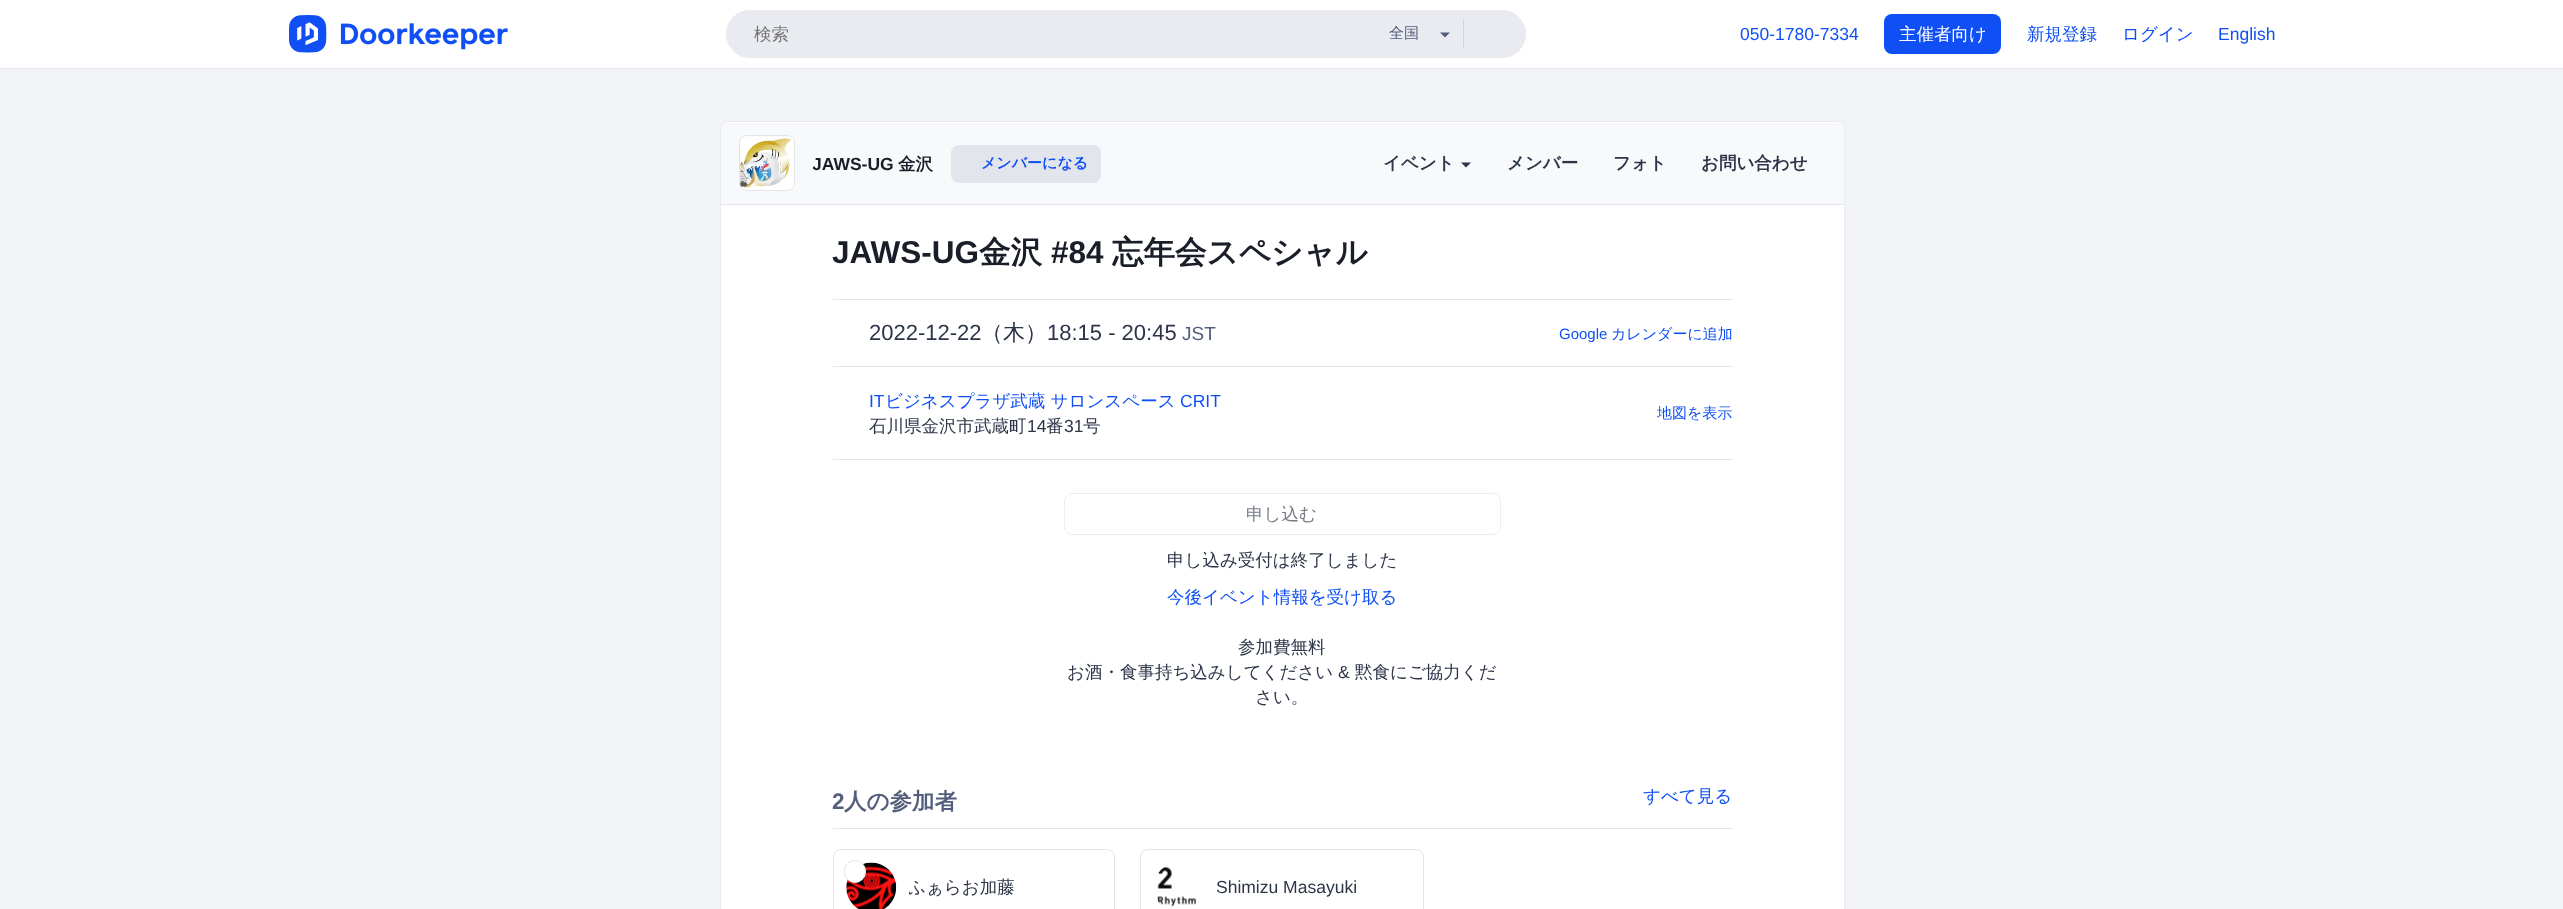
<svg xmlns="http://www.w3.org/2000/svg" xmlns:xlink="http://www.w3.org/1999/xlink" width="2563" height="909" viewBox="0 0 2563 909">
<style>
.cls-1{font:500 17.5px WenQuanYi Zen Hei;fill:#757575}
.cls-2{font:500 15px WenQuanYi Zen Hei;fill:#535e7c}
.cls-3{font:17.5px Liberation Sans;fill:#0f4ff4}
.cls-4{font:500 17.5px WenQuanYi Zen Hei;fill:#ffffff}
.cls-5{font:500 17.5px WenQuanYi Zen Hei;fill:#0f4ff4}
.cls-6{font:bold 17.5px Liberation Sans;fill:#1a1e29}
.cls-7{font:bold 17.5px WenQuanYi Zen Hei;fill:#1a1e29}
.cls-8{font:bold 15px WenQuanYi Zen Hei;fill:#0f4ff4}
.cls-9{font:bold 17.5px WenQuanYi Zen Hei;fill:#2d3549}
.cls-10{font:bold 31.5px Liberation Sans;fill:#1a1e29}
.cls-11{font:bold 31.5px WenQuanYi Zen Hei;fill:#1a1e29}
.cls-12{font:22px Liberation Sans;fill:#2d3549}
.cls-13{font:500 22px WenQuanYi Zen Hei;fill:#2d3549}
.cls-14{font:19px Liberation Sans;fill:#535e7c}
.cls-15{font:15px Liberation Sans;fill:#0f4ff4}
.cls-16{font:500 15px WenQuanYi Zen Hei;fill:#0f4ff4}
.cls-17{font:500 17.5px WenQuanYi Zen Hei;fill:#2d3549}
.cls-18{font:17.5px Liberation Sans;fill:#2d3549}
.cls-19{font:500 17.5px WenQuanYi Zen Hei;fill:#777c89}
.cls-20{font:bold 22.5px Liberation Sans;fill:#535e7c}
.cls-21{font:bold 22.5px WenQuanYi Zen Hei;fill:#535e7c}
</style>
<defs>
<clipPath id="clip1"><rect x="813" y="155" width="121" height="21"/></clipPath>
<clipPath id="clip2"><rect x="909" y="875" width="192" height="25"/></clipPath>
</defs>
<rect width="100%" height="100%" fill="#ffffff"/>
<rect fill="#e3e5ec" x="0" y="68" width="2563" height="1"/>
<image xlink:href="image0.png" x="289" y="15" width="219" height="38"/>
<rect fill="#e9ebf0" x="726" y="10" width="800" height="48" rx="24"/>
<rect fill="#d2d4d8" x="1463" y="20" width="1" height="28"/>
<path fill="#535e7c" d="M1440 32.5H1450L1445 37.5Z"/>
<rect fill="#0f4ff4" x="1884" y="14" width="117" height="40" rx="8"/>
<rect fill="#f2f3f6" x="0" y="69" width="2563" height="840"/>
<rect fill="#ffffff" x="720" y="121" width="1125" height="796" rx="8"/>
<rect fill="none" stroke="#2c3146" stroke-opacity="0.1" x="720.5" y="121.5" width="1124" height="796" rx="7.5"/>
<path fill="#f8f9fa" d="M727 123H1838C1841.5 123 1844 125.5 1844 129V205H721V129C721 125.5 723.5 123 727 123Z"/>
<rect fill="#e3e5ec" x="721" y="204" width="1123" height="1"/>
<rect fill="none" stroke="#e4e5e6" x="739.5" y="135.5" width="55" height="55" rx="7.5"/>
<image xlink:href="image1.png" x="740" y="136" width="54" height="54"/>
<rect fill="#e3e5ec" x="951" y="145" width="150" height="38" rx="8"/>
<path fill="#2d3549" d="M1461 162.5H1471L1466 167.5Z"/>
<rect fill="#e3e5ec" x="833" y="299" width="900" height="1"/>
<rect fill="#e3e5ec" x="833" y="366" width="900" height="1"/>
<rect fill="#e3e5ec" x="833" y="459" width="900" height="1"/>
<rect fill="none" stroke="#edeef3" x="1064.5" y="493.5" width="436" height="41" rx="7.5"/>
<rect fill="#e3e5ec" x="833" y="828" width="900" height="1"/>
<rect fill="none" stroke="#e3e5ec" x="833.5" y="849.5" width="281" height="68" rx="7.5"/>
<image xlink:href="image2.png" x="846" y="862" width="51" height="47"/>
<rect fill="#ffffff" stroke="#e3e5ec" x="844.5" y="860.5" width="21" height="22" rx="10.5"/>
<rect fill="none" stroke="#e3e5ec" x="1140.5" y="849.5" width="283" height="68" rx="7.5"/>
<image xlink:href="image3.png" x="1157" y="866" width="42" height="41"/>
<text class="cls-1" x="754" y="40">検索</text>
<text class="cls-2" x="1389" y="38">全国</text>
<text class="cls-3" x="1740" y="40">050-1780-7334</text>
<text class="cls-4" x="1899" y="40">主催者向け</text>
<text class="cls-5" x="2027" y="40">新規登録</text>
<text class="cls-5" x="2122" y="40">ログイン</text>
<text class="cls-3" x="2218" y="40">English</text>
<g clip-path="url(#clip1)">
<text class="cls-6" x="812" y="170">JAWS-UG</text>
</g>
<text class="cls-7" x="898" y="170">金沢</text>
<text class="cls-8" x="981" y="168">メンバーになる</text>
<text class="cls-9" x="1383" y="169">イベント</text>
<text class="cls-9" x="1507" y="169">メンバー</text>
<text class="cls-9" x="1613" y="169">フォト</text>
<text class="cls-9" x="1701" y="169">お問い合わせ</text>
<text class="cls-10" x="832" y="263">JAWS-UG</text>
<text class="cls-11" x="979" y="263">金沢</text>
<text class="cls-10" x="1051" y="263">#84</text>
<text class="cls-11" x="1112" y="263">忘年会スペシャル</text>
<text class="cls-12" x="869" y="340">2022-12-22</text>
<text class="cls-13" x="981" y="340">（木）</text>
<text class="cls-12" x="1047" y="340">18:15 - 20:45</text>
<text class="cls-14" x="1182" y="340">JST</text>
<text class="cls-15" x="1559" y="339">Google</text>
<text class="cls-16" x="1611" y="339">カレンダーに追加</text>
<text class="cls-3" x="869" y="407">IT</text>
<text class="cls-5" x="885" y="407">ビジネスプラザ武蔵 サロンスペース</text>
<text class="cls-3" x="1180" y="407">CRIT</text>
<text class="cls-17" x="869" y="432">石川県金沢市武蔵町</text>
<text class="cls-18" x="1027" y="432">14</text>
<text class="cls-17" x="1046" y="432">番</text>
<text class="cls-18" x="1064" y="432">31</text>
<text class="cls-17" x="1083" y="432">号</text>
<text class="cls-16" x="1657" y="418">地図を表示</text>
<text class="cls-19" x="1246" y="520">申し込む</text>
<text class="cls-17" x="1167" y="566">申し込み受付は終了しました</text>
<text class="cls-5" x="1167" y="603">今後イベント情報を受け取る</text>
<text class="cls-17" x="1238" y="653">参加費無料</text>
<text class="cls-17" x="1067" y="678">お酒・食事持ち込みしてください</text>
<text class="cls-18" x="1338" y="678">&amp;</text>
<text class="cls-17" x="1355" y="678">黙食にご協力くだ</text>
<text class="cls-17" x="1255" y="703">さい。</text>
<text class="cls-20" x="832" y="809">2</text>
<text class="cls-21" x="844" y="809">人の参加者</text>
<text class="cls-5" x="1643" y="802">すべて見る</text>
<g clip-path="url(#clip2)">
<text class="cls-17" x="908" y="893">ふぁらお加藤</text>
</g>
<text class="cls-18" x="1216" y="893">Shimizu Masayuki</text>
</svg>
